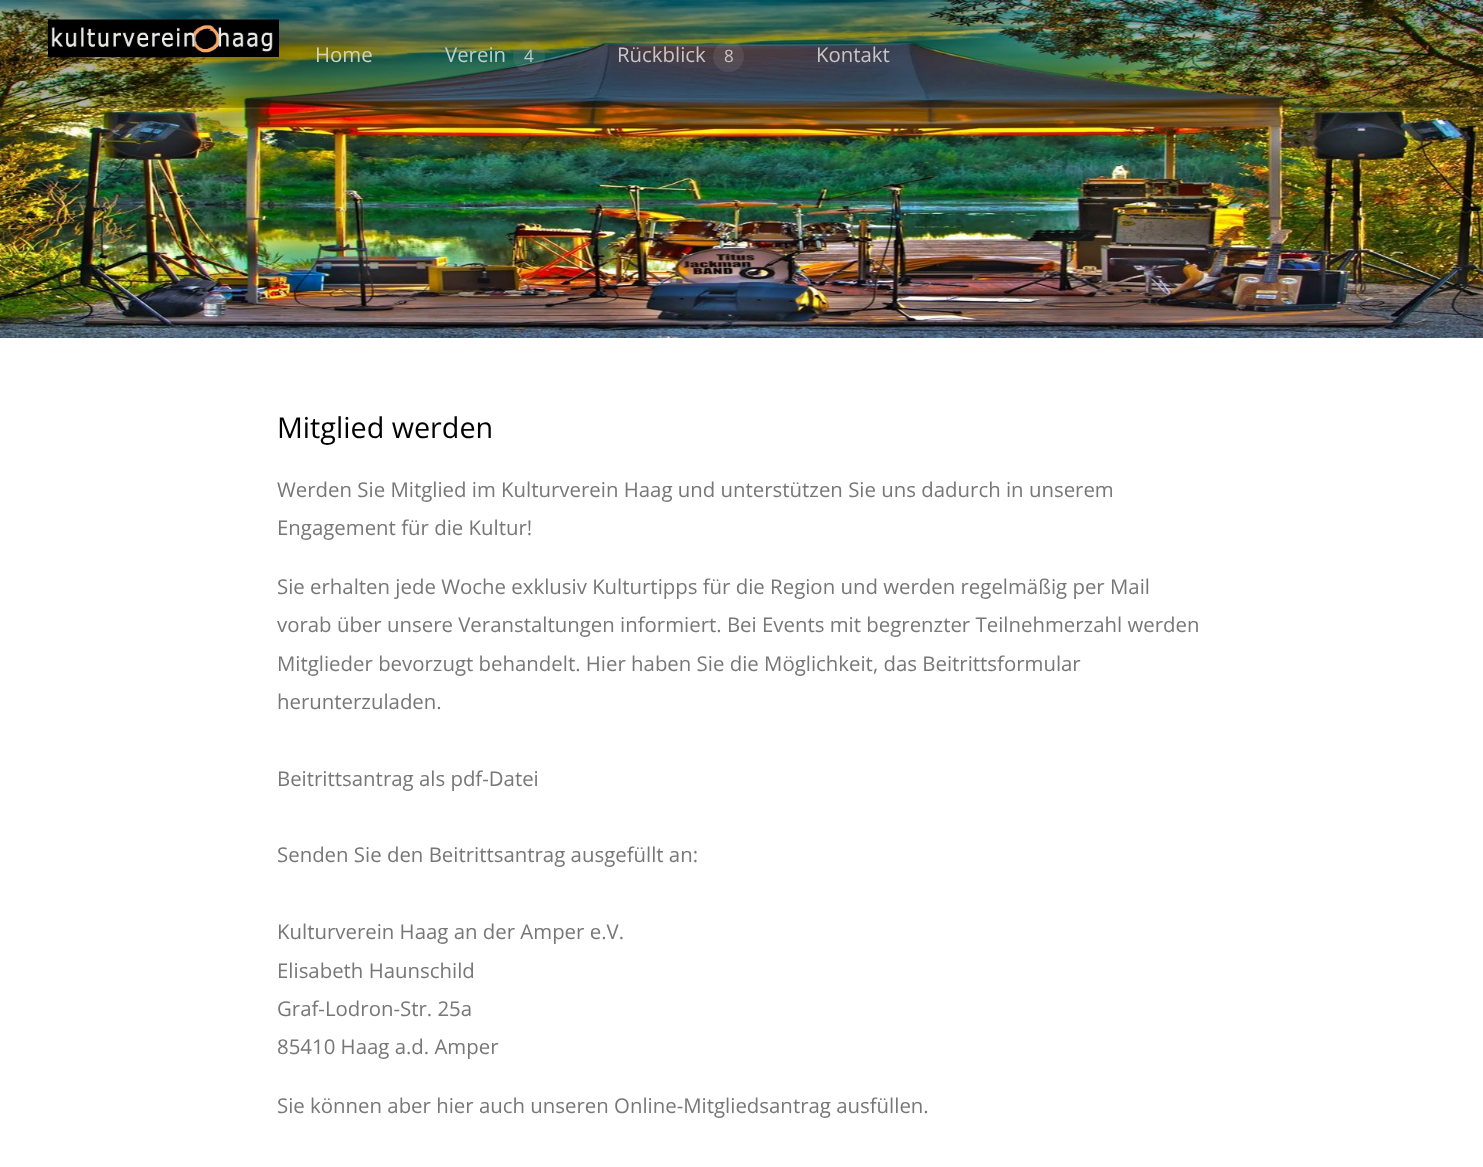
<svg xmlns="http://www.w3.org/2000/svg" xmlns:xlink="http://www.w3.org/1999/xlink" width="1483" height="1167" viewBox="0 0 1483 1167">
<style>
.cls-1{font:20.4px Open Sans;fill:#d0d4bc}
.cls-2{font:20.4px Open Sans;fill:#bed0c9}
.cls-3{font:17px Open Sans;fill:#bed0c9}
.cls-4{font:20.4px Open Sans;fill:#c8c5c7}
.cls-5{font:17px Open Sans;fill:#c8c5c7}
.cls-6{font:28.75px Open Sans;fill:#000000}
.cls-7{font:20.4px Open Sans;fill:#777777}
</style>
<rect width="100%" height="100%" fill="#ffffff"/>
<image xlink:href="image1.png" x="0" y="0" width="1483" height="338"/>
<rect fill="#000000" fill-opacity="0.3" x="0" y="0" width="1483" height="108"/>
<rect fill="#000000" fill-opacity="0.05" x="0" y="0" width="1483" height="2"/>
<rect fill="#ffffff" fill-opacity="0.09" x="0" y="107" width="1483" height="2"/>
<image xlink:href="image0.png" x="48" y="19" width="231" height="38"/>
<rect fill="#999999" fill-opacity="0.17" x="513" y="41" width="32" height="31" rx="15.5"/>
<circle fill="#999999" fill-opacity="0.17" cx="728.5" cy="56.5" r="15.5"/>
<text class="cls-1" x="315" y="62">Home</text>
<text class="cls-2" x="445" y="62">Verein</text>
<text class="cls-3" x="524" y="62">4</text>
<text class="cls-4" x="617" y="62">Rückblick</text>
<text class="cls-5" x="724" y="62">8</text>
<text class="cls-4" x="816" y="62">Kontakt</text>
<text class="cls-6" x="277" y="438">Mitglied werden</text>
<text class="cls-7"><tspan x="277" y="497">Werden Sie Mitglied im Kulturverein Haag und unterstützen Sie uns dadurch in unserem</tspan><tspan x="277" y="535">Engagement für die Kultur!</tspan></text>
<text class="cls-7"><tspan x="277" y="594">Sie erhalten jede Woche exklusiv Kulturtipps für die Region und werden regelmäßig per Mail</tspan><tspan x="277" y="632">vorab über unsere Veranstaltungen informiert. Bei Events mit begrenzter Teilnehmerzahl werden</tspan><tspan x="277" y="671">Mitglieder bevorzugt behandelt. Hier haben Sie die Möglichkeit, das Beitrittsformular</tspan><tspan x="277" y="709">herunterzuladen.</tspan></text>
<text class="cls-7" x="277" y="786">Beitrittsantrag als pdf-Datei</text>
<text class="cls-7" x="277" y="862">Senden Sie den Beitrittsantrag ausgefüllt an:</text>
<text class="cls-7"><tspan x="277" y="939">Kulturverein Haag an der Amper e.V.</tspan><tspan x="277" y="978">Elisabeth Haunschild</tspan><tspan x="277" y="1016">Graf-Lodron-Str. 25a</tspan><tspan x="277" y="1054">85410 Haag a.d. Amper</tspan></text>
<text class="cls-7" x="277" y="1113">Sie können aber hier auch unseren Online-Mitgliedsantrag ausfüllen.</text>
</svg>
